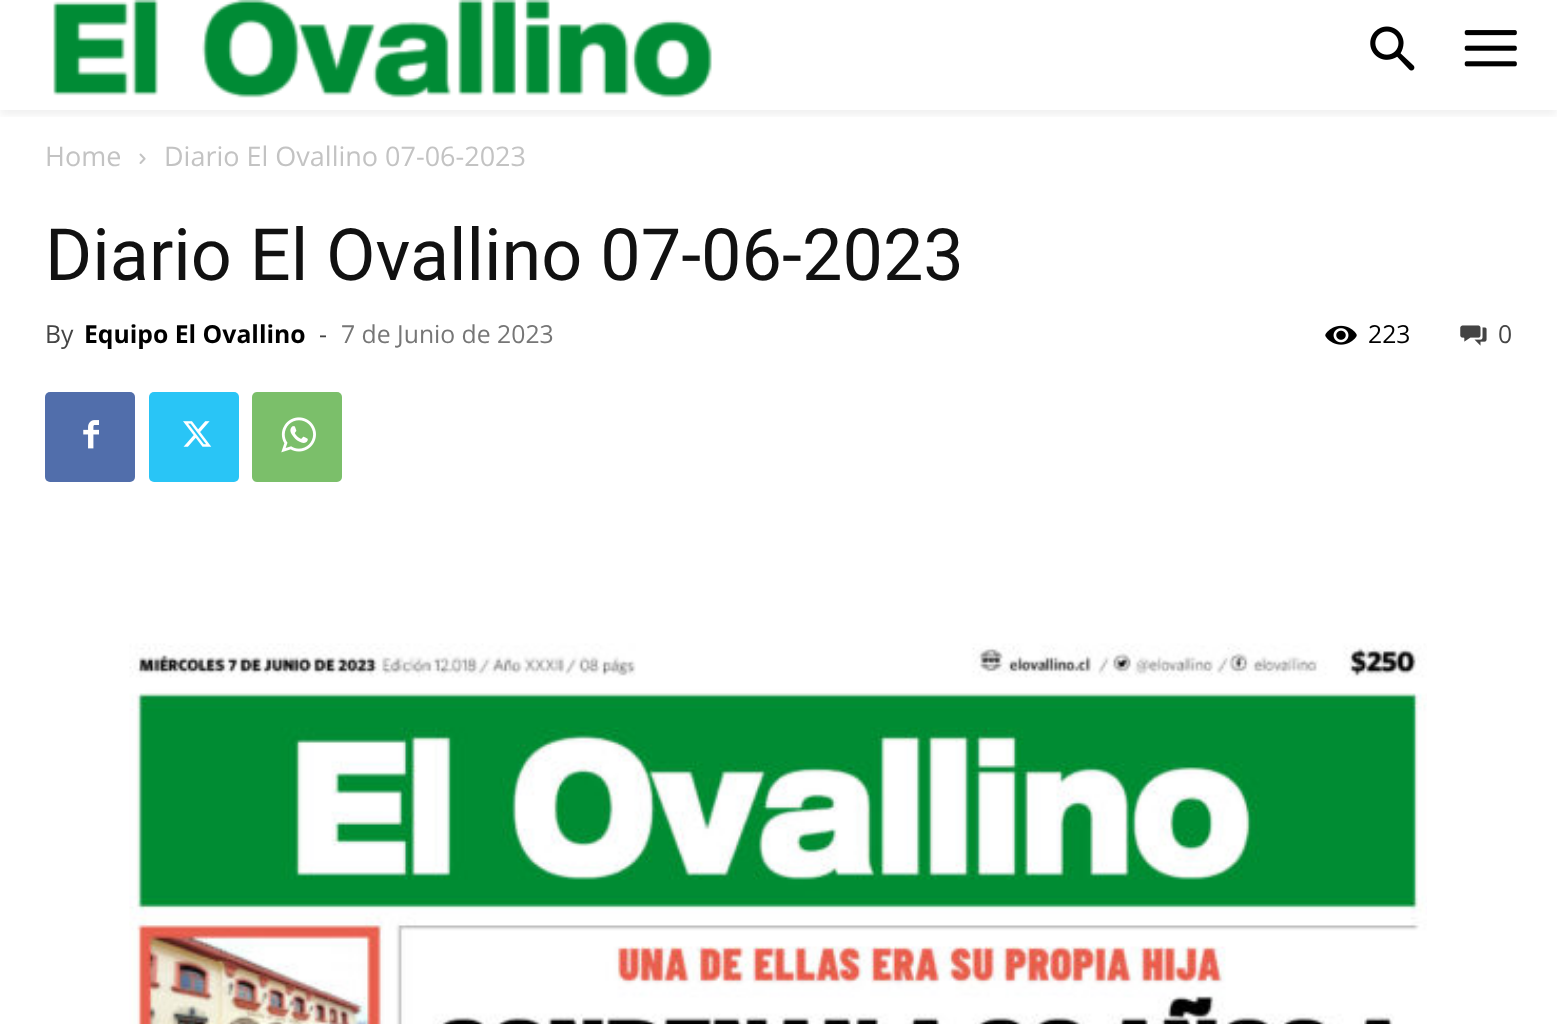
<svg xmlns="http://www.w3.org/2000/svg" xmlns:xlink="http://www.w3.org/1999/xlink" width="1557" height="1024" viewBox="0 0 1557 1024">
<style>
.cls-1{font:27px Open Sans;fill:#c3c3c3}
.cls-2{font:72px Roboto;fill:#111111}
.cls-3{font:24.75px Open Sans;fill:#444444}
.cls-4{font:bold 24.75px Open Sans;fill:#000000}
.cls-5{font:24.75px Open Sans;fill:#767676}
.cls-6{font:24.75px Open Sans;fill:#000000}
</style>
<defs>
<clipPath id="clip1"><rect x="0" y="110" width="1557" height="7"/></clipPath>
</defs>
<rect width="100%" height="100%" fill="#ffffff"/>
<image xlink:href="image0.png" x="53" y="0" width="659" height="98"/>
<image xlink:href="image1.png" x="1370" y="26" width="45" height="45"/>
<image xlink:href="image2.png" x="1464" y="30" width="53" height="37"/>
<g clip-path="url(#clip1)">
<rect fill="#000000" fill-opacity="0.06" filter="blur(4.5px)" x="0" y="5" width="1557" height="110"/>
</g>
<image xlink:href="image3.png" x="139" y="153" width="7" height="11"/>
<image xlink:href="image4.png" x="1325" y="325" width="32" height="20"/>
<image xlink:href="image5.png" x="1460" y="325" width="27" height="21"/>
<rect fill="#516eab" x="45" y="392" width="90" height="90" rx="5"/>
<image xlink:href="image6.png" x="83" y="420" width="16" height="29"/>
<rect fill="#29c5f6" x="149" y="392" width="90" height="90" rx="5"/>
<image xlink:href="image7.png" x="183" y="421" width="29" height="26"/>
<rect fill="#7bbf6a" x="252" y="392" width="90" height="90" rx="5"/>
<image xlink:href="image8.png" x="281" y="417" width="35" height="36"/>
<image xlink:href="image9.png" x="129" y="643" width="1298" height="381"/>
<text class="cls-1" x="45" y="166">Home</text>
<text class="cls-1" x="164" y="166">Diario El Ovallino 07-06-2023</text>
<text class="cls-2" x="45" y="280">Diario El Ovallino 07-06-2023</text>
<text class="cls-3" x="45" y="343">By</text>
<text class="cls-4" x="84" y="343">Equipo El Ovallino</text>
<text class="cls-3" x="319" y="343">-</text>
<text class="cls-5" x="341" y="343">7 de Junio de 2023</text>
<text class="cls-6" x="1368" y="343">223</text>
<text class="cls-3" x="1498" y="343">0</text>
</svg>
